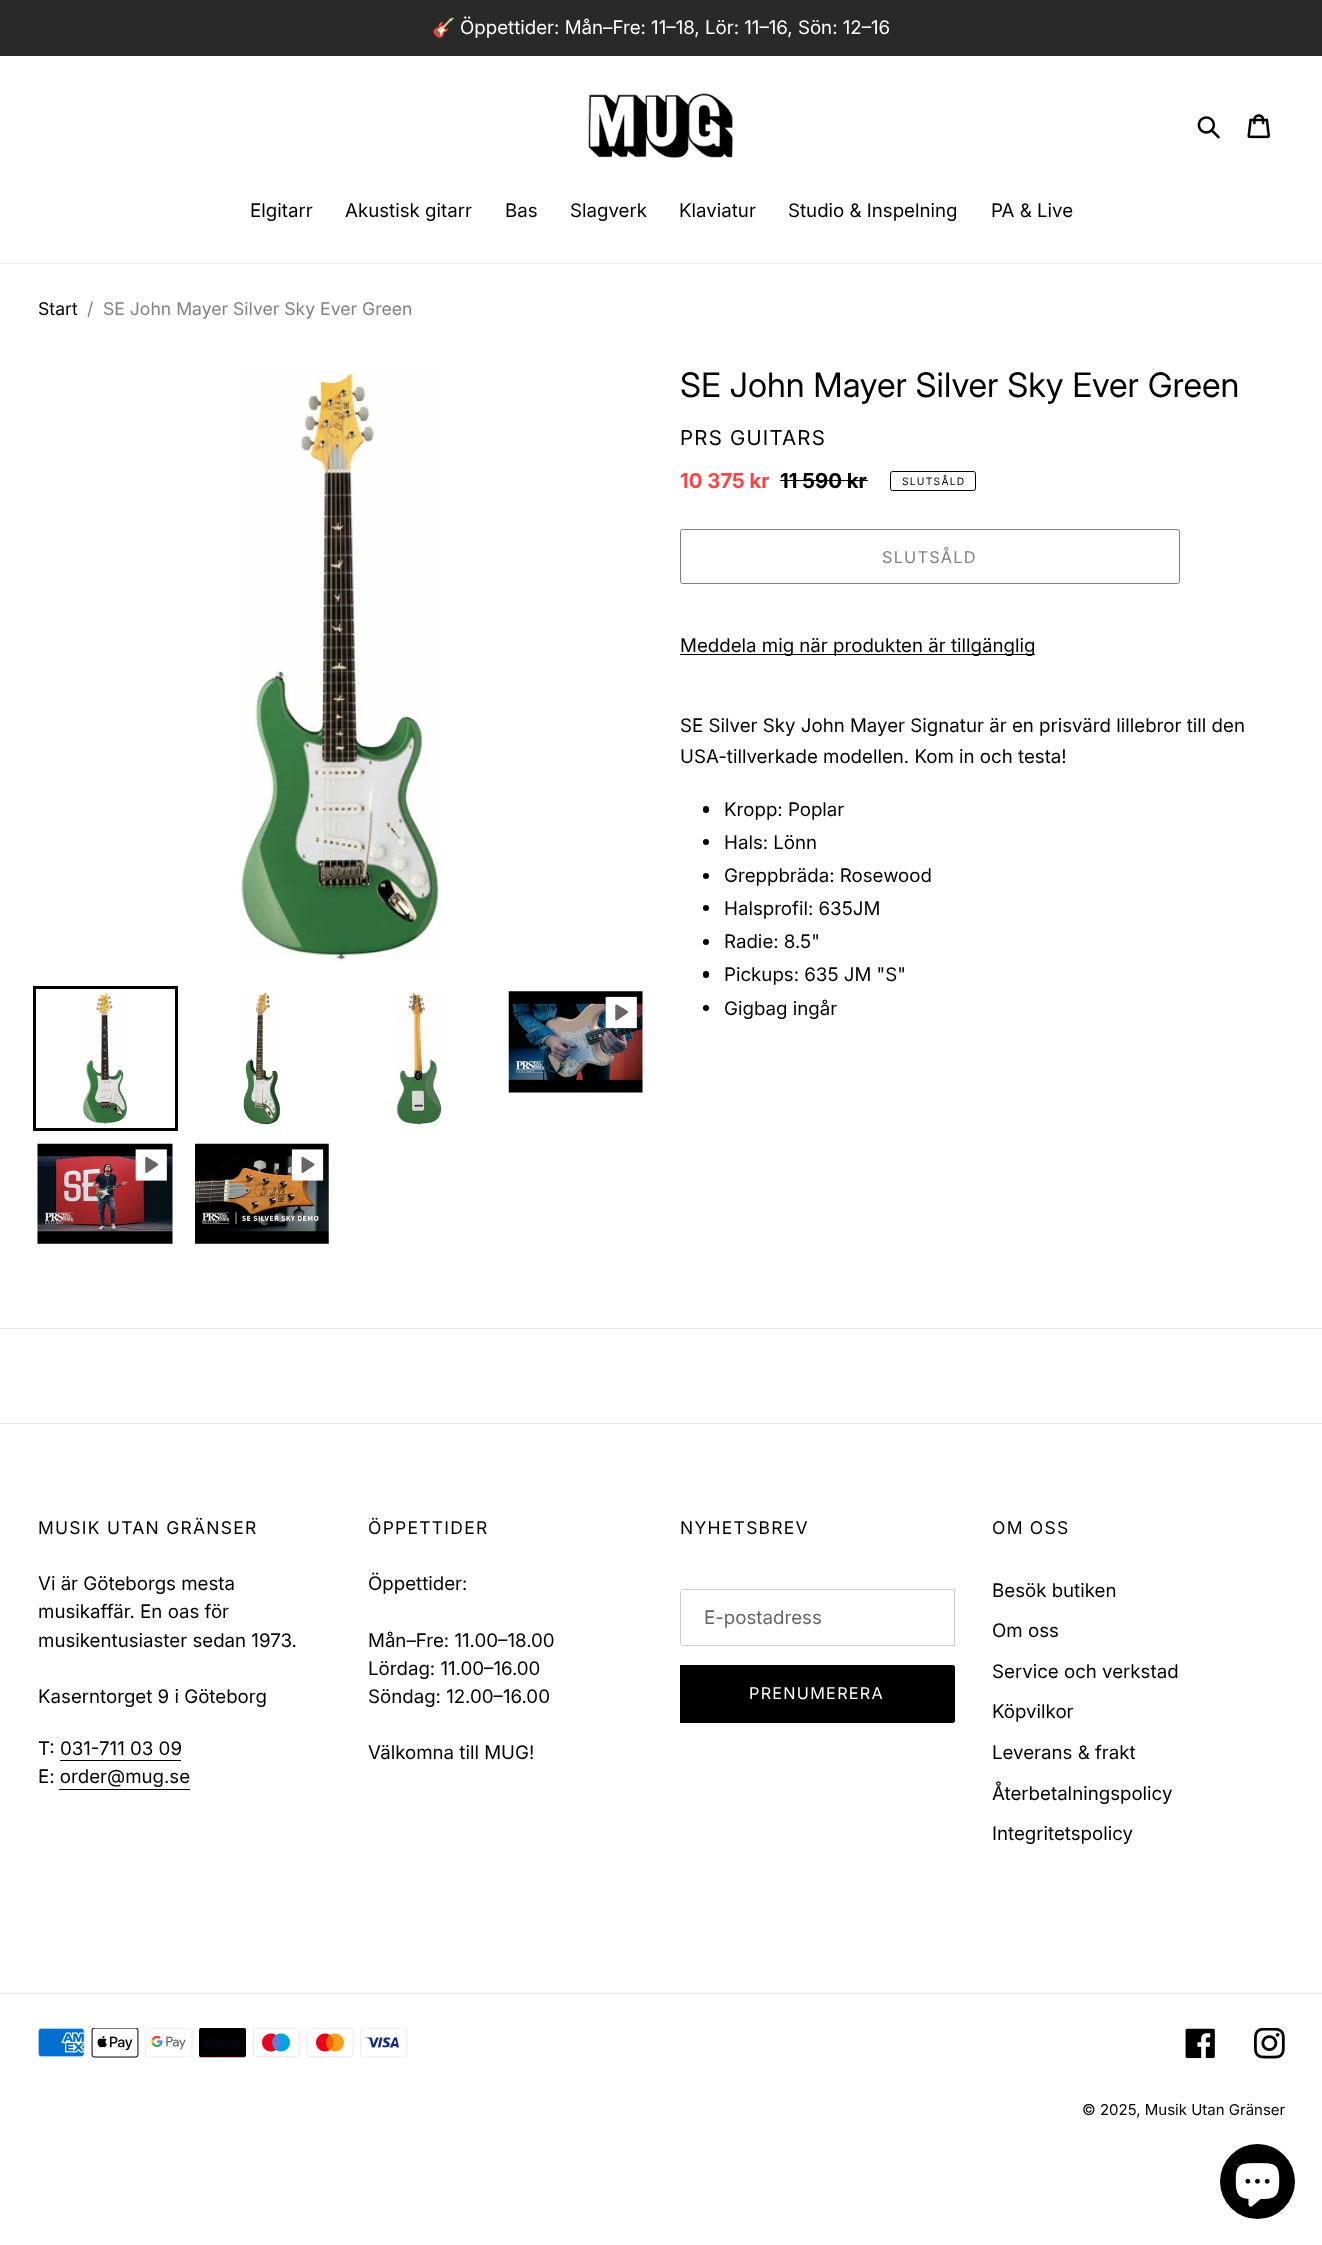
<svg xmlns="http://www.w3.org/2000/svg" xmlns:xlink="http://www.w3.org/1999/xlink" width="1322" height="2245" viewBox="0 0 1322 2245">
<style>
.cls-1{font:18.75px Noto Color Emoji;fill:#ffffff}
.cls-2{font:18.75px 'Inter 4';fill:#ffffff}
.cls-3{font:18.75px 'Inter 4';fill:#000000}
.cls-4{font:17.6px 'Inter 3';fill:#000000}
.cls-5{font:17.6px 'Inter 3';fill:#818181}
.cls-6{font:33.75px Inter;fill:#000000}
.cls-7{font:20.5px 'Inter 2';letter-spacing:1.25px;fill:#000000}
.cls-8{font:bold 20.5px Inter;fill:#fa4545}
.cls-9{font:bold 20.5px Inter;fill:#000000}
.cls-10{font:10.25px 'Inter 3';letter-spacing:1.25px;fill:#000000}
.cls-11{font:16.25px 'Inter 3';letter-spacing:1.25px;fill:#818181}
.cls-12{font:17.5px 'Inter 3';letter-spacing:1.25px;fill:#000000}
.cls-13{font:18.75px 'Inter 4';fill:#666666}
.cls-14{font:16.25px 'Inter 3';letter-spacing:1.25px;fill:#ffffff}
.cls-15{font:15px 'Inter 3';fill:#000000}
</style>
<rect width="100%" height="100%" fill="#ffffff"/>
<rect fill="#292929" x="0" y="0" width="1322" height="56"/>
<image xlink:href="image0.png" x="588" y="93" width="145" height="65"/>
<image xlink:href="image1.png" x="1197" y="116" width="23" height="23"/>
<image xlink:href="image2.png" x="1247" y="114" width="23" height="25"/>
<rect fill="#ebebeb" x="0" y="263" width="1322" height="1"/>
<image xlink:href="image3.png" x="239" y="373" width="202" height="588"/>
<rect fill="none" stroke="#000000" stroke-width="3" x="34.5" y="987.5" width="142" height="142"/>
<image xlink:href="image4.png" x="83" y="991" width="45" height="133"/>
<image xlink:href="image5.png" x="243" y="991" width="38" height="135"/>
<image xlink:href="image6.png" x="396" y="991" width="46" height="134"/>
<image xlink:href="image7.png" x="508" y="991" width="135" height="102"/>
<image xlink:href="image8.png" x="605" y="996" width="32" height="33"/>
<image xlink:href="image9.png" x="37" y="1143" width="136" height="101"/>
<image xlink:href="image10.png" x="135" y="1149" width="32" height="32"/>
<image xlink:href="image11.png" x="195" y="1143" width="134" height="101"/>
<image xlink:href="image12.png" x="291" y="1149" width="33" height="32"/>
<rect fill="#000000" x="780" y="480" width="88" height="1"/>
<rect fill="none" stroke="#000000" x="890.5" y="471.5" width="85" height="19" rx="2"/>
<rect fill="none" stroke="#808080" x="680.5" y="529.5" width="499" height="54" rx="2"/>
<rect fill="#000000" x="680" y="654" width="355" height="1"/>
<rect fill="#000000" x="703" y="806" width="6" height="7" rx="3"/>
<circle fill="#000000" cx="706" cy="842" r="3"/>
<circle fill="#000000" cx="706" cy="876" r="3"/>
<circle fill="#000000" cx="706" cy="908" r="3"/>
<circle fill="#000000" cx="706" cy="942" r="3"/>
<rect fill="#000000" x="703" y="971" width="6" height="7" rx="3"/>
<circle fill="#000000" cx="706" cy="1008" r="3"/>
<rect fill="#e6e6e6" x="0" y="1328" width="1322" height="1"/>
<rect fill="#e6e6e6" x="0" y="1423" width="1322" height="1"/>
<rect fill="#000000" x="60" y="1760" width="121" height="1"/>
<rect fill="#000000" x="59" y="1789" width="131" height="1"/>
<path fill="none" stroke="#cccccc" d="M682.5 1589.5H954.5V1645.5H682.5C681.5 1645.5 680.5 1644.5 680.5 1643.5V1591.5C680.5 1590.5 681.5 1589.5 682.5 1589.5Z"/>
<path fill="#000000" d="M680 1665H952.5C954 1665 955 1666 955 1667.5V1720.5C955 1722 954 1723 952.5 1723H680Z"/>
<rect fill="#e6e6e6" x="0" y="1993" width="1322" height="1"/>
<image xlink:href="image13.png" x="38" y="2028" width="47" height="30"/>
<image xlink:href="image14.png" x="91" y="2028" width="48" height="30"/>
<image xlink:href="image15.png" x="145" y="2028" width="48" height="30"/>
<image xlink:href="image16.png" x="199" y="2028" width="47" height="30"/>
<image xlink:href="image17.png" x="253" y="2028" width="47" height="30"/>
<image xlink:href="image18.png" x="306" y="2028" width="48" height="30"/>
<image xlink:href="image19.png" x="360" y="2028" width="48" height="30"/>
<image xlink:href="image20.png" x="1185" y="2028" width="30" height="31"/>
<image xlink:href="image21.png" x="1254" y="2028" width="31" height="31"/>
<circle fill="#000000" cx="1257.5" cy="2181.5" r="37.5"/>
<image xlink:href="image22.png" x="1235" y="2163" width="45" height="44"/>
<text class="cls-1" x="432" y="34">🎸</text>
<text class="cls-2" x="460" y="34">Öppettider: Mån–Fre: 11–18, Lör: 11–16, Sön: 12–16</text>
<text class="cls-3" x="250" y="217">Elgitarr</text>
<text class="cls-3" x="345" y="217">Akustisk gitarr</text>
<text class="cls-3" x="505" y="217">Bas</text>
<text class="cls-3" x="570" y="217">Slagverk</text>
<text class="cls-3" x="679" y="217">Klaviatur</text>
<text class="cls-3" x="788" y="217">Studio &amp; Inspelning</text>
<text class="cls-3" x="991" y="217">PA &amp; Live</text>
<text class="cls-4" x="38" y="315">Start</text>
<text class="cls-5" x="87" y="315">/</text>
<text class="cls-5" x="103" y="315">SE John Mayer Silver Sky Ever Green</text>
<text class="cls-6" x="680" y="397">SE John Mayer Silver Sky Ever Green</text>
<text class="cls-7" x="680" y="445">PRS GUITARS</text>
<text class="cls-8" x="680" y="488">10 375 kr</text>
<text class="cls-9" x="780" y="488">11 590 kr</text>
<text class="cls-10" x="902" y="485">SLUTSÅLD</text>
<text class="cls-11" x="882" y="563">SLUTSÅLD</text>
<text class="cls-3" x="680" y="652">Meddela mig när produkten är tillgänglig</text>
<text class="cls-3"><tspan x="680" y="732">SE Silver Sky John Mayer Signatur är en prisvärd lillebror till den</tspan><tspan x="680" y="763">USA-tillverkade modellen. Kom in och testa!</tspan></text>
<text class="cls-3"><tspan x="724" y="816">Kropp: Poplar</tspan><tspan x="724" y="849">Hals: Lönn</tspan><tspan x="724" y="882">Greppbräda: Rosewood</tspan><tspan x="724" y="915">Halsprofil: 635JM</tspan><tspan x="724" y="948">Radie: 8.5"</tspan><tspan x="724" y="981">Pickups: 635 JM "S"</tspan><tspan x="724" y="1015">Gigbag ingår</tspan></text>
<text class="cls-12" x="38" y="1534">MUSIK UTAN GRÄNSER</text>
<text class="cls-3"><tspan x="38" y="1590">Vi är Göteborgs mesta</tspan><tspan x="38" y="1618">musikaffär. En oas för</tspan><tspan x="38" y="1647">musikentusiaster sedan 1973.</tspan></text>
<text class="cls-3" x="38" y="1703">Kaserntorget 9 i Göteborg</text>
<text class="cls-3"><tspan x="38" y="1755">T: 031-711 03 09</tspan><tspan x="38" y="1783">E: order@mug.se</tspan></text>
<text class="cls-12" x="368" y="1534">ÖPPETTIDER</text>
<text class="cls-3" x="368" y="1590">Öppettider:</text>
<text class="cls-3"><tspan x="368" y="1647">Mån–Fre: 11.00–18.00</tspan><tspan x="368" y="1675">Lördag: 11.00–16.00</tspan><tspan x="368" y="1703">Söndag: 12.00–16.00</tspan></text>
<text class="cls-3" x="368" y="1759">Välkomna till MUG!</text>
<text class="cls-12" x="680" y="1534">NYHETSBREV</text>
<text class="cls-13" x="704" y="1624">E-postadress</text>
<text class="cls-14" x="749" y="1699">PRENUMERERA</text>
<text class="cls-12" x="992" y="1534">OM OSS</text>
<text class="cls-3" x="992" y="1597">Besök butiken</text>
<text class="cls-3" x="992" y="1637">Om oss</text>
<text class="cls-3" x="992" y="1678">Service och verkstad</text>
<text class="cls-3" x="992" y="1718">Köpvilkor</text>
<text class="cls-3" x="992" y="1759">Leverans &amp; frakt</text>
<text class="cls-3" x="992" y="1800">Återbetalningspolicy</text>
<text class="cls-3" x="992" y="1840">Integritetspolicy</text>
<text class="cls-15" x="1082" y="2115">© 2025, Musik Utan Gränser</text>
</svg>
